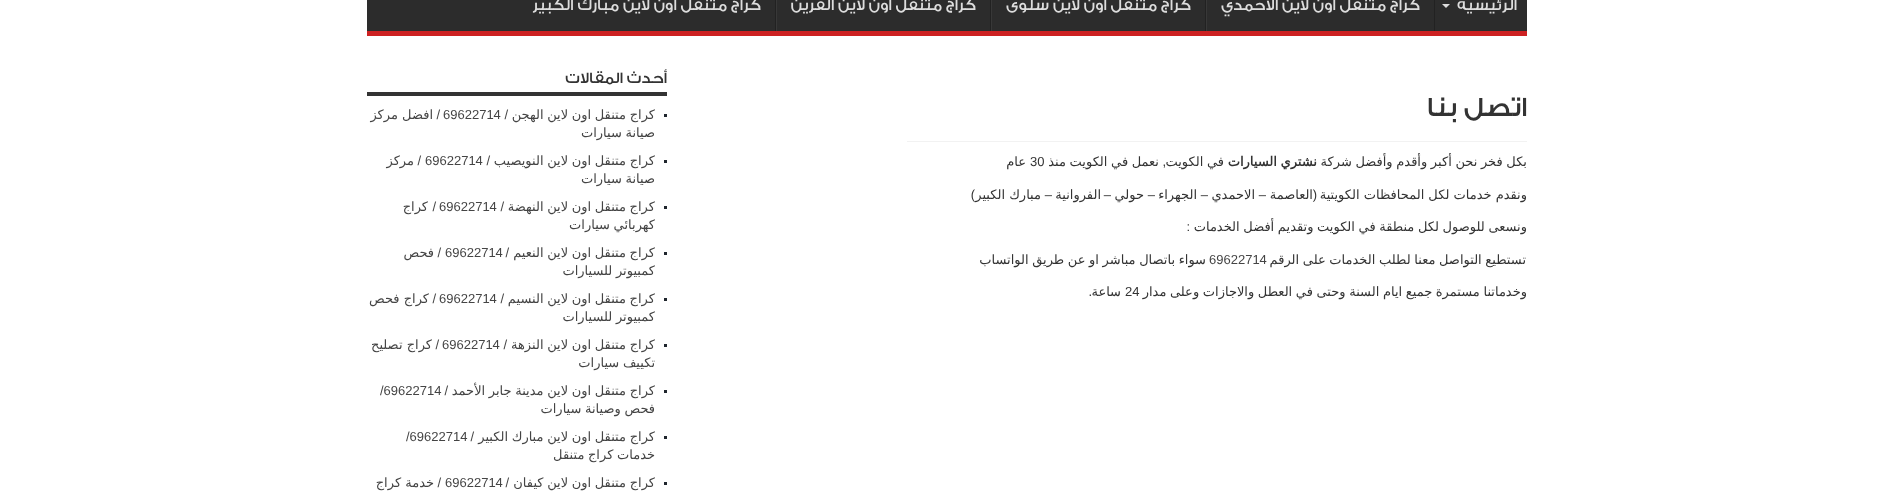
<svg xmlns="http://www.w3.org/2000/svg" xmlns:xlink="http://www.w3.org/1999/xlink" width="1894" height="494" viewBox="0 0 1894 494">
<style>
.cls-1{font:500 16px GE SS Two;direction:rtl;fill:#dddddd}
.cls-2{font:500 28px GE SS Two;direction:rtl;fill:#333333}
.cls-3{font:13px DejaVu Sans;direction:rtl;fill:#333333}
.cls-4{font:bold 13px DejaVu Sans;direction:rtl;fill:#333333}
.cls-5{font:13px Liberation Sans;direction:rtl;fill:#333333}
.cls-6{font:13px Liberation Sans;fill:#333333}
.cls-7{font:13px Liberation Sans;fill:#444444}
.cls-8{font:500 16px GE SS Two;direction:rtl;fill:#333333}
.cls-9{font:13px DejaVu Sans;direction:rtl;fill:#444444}
.cls-10{font:13px Liberation Sans;direction:rtl;fill:#444444}
</style>
<rect width="100%" height="100%" fill="#ffffff"/>
<rect fill="#2c2c2c" x="367" y="0" width="1160" height="31"/>
<rect fill="#cd2122" x="367" y="31" width="1160" height="5"/>
<path fill="#dddddd" d="M1442 4H1450L1446 8Z"/>
<rect fill="#222222" x="1434" y="0" width="1" height="31"/>
<rect fill="#383838" x="1206" y="0" width="1" height="31"/>
<rect fill="#222222" x="1205" y="0" width="1" height="31"/>
<rect fill="#383838" x="991" y="0" width="1" height="31"/>
<rect fill="#222222" x="990" y="0" width="1" height="31"/>
<rect fill="#383838" x="776" y="0" width="1" height="31"/>
<rect fill="#222222" x="775" y="0" width="1" height="31"/>
<rect fill="#f2f2f2" x="907" y="141" width="620" height="1"/>
<rect fill="#333333" x="367" y="92" width="300" height="4"/>
<rect fill="#1f262d" x="664" y="114" width="3" height="3"/>
<rect fill="#1f262d" x="664" y="160" width="3" height="3"/>
<rect fill="#1f262d" x="664" y="206" width="3" height="3"/>
<rect fill="#1f262d" x="664" y="252" width="3" height="3"/>
<rect fill="#1f262d" x="664" y="298" width="3" height="3"/>
<rect fill="#1f262d" x="664" y="344" width="3" height="3"/>
<rect fill="#1f262d" x="664" y="390" width="3" height="3"/>
<rect fill="#1f262d" x="664" y="436" width="3" height="3"/>
<rect fill="#1f262d" x="664" y="482" width="3" height="3"/>
<text class="cls-1" x="1517" y="10">الرئيسية</text>
<text class="cls-1" x="1420" y="10">كراج متنقل اون لاين الاحمدي</text>
<text class="cls-1" x="1191" y="10">كراج متنقل اون لاين سلوى</text>
<text class="cls-1" x="976" y="10">كراج متنقل اون لاين القرين</text>
<text class="cls-1" x="761" y="10">كراج متنقل اون لاين مبارك الكبير</text>
<text class="cls-2" x="1527" y="116">اتصل بنا</text>
<text class="cls-3" x="1527" y="166" word-spacing="-0.5">بكل فخر نحن أكبر وأقدم وأفضل شركة</text>
<text class="cls-4" x="1317" y="166" word-spacing="-0.5">نشتري السيارات</text>
<text class="cls-3" x="1224" y="166" word-spacing="-0.5">في الكويت</text>
<text class="cls-5" x="1166" y="166">,</text>
<text class="cls-3" x="1159" y="166" word-spacing="-0.5">نعمل في الكويت منذ</text>
<text class="cls-6" x="1030" y="166">30</text>
<text class="cls-3" x="1026" y="166">عام</text>
<text class="cls-3" x="1527" y="199">ونقدم خدمات لكل المحافظات الكويتية</text>
<text class="cls-5" x="1317" y="199">(</text>
<text class="cls-3" x="1313" y="199">العاصمة</text>
<text class="cls-5" x="1266" y="199">–</text>
<text class="cls-3" x="1255" y="199">الاحمدي</text>
<text class="cls-5" x="1208" y="199">–</text>
<text class="cls-3" x="1197" y="199">الجهراء</text>
<text class="cls-5" x="1155" y="199">–</text>
<text class="cls-3" x="1144" y="199">حولي</text>
<text class="cls-5" x="1111" y="199">–</text>
<text class="cls-3" x="1101" y="199">الفروانية</text>
<text class="cls-5" x="1052" y="199">–</text>
<text class="cls-5" x="975" y="199">)</text>
<text class="cls-3" x="1041" y="199">مبارك الكبير</text>
<text class="cls-3" x="1527" y="231" word-spacing="-0.5">ونسعى للوصول لكل منطقة في الكويت وتقديم أفضل الخدمات</text>
<text class="cls-5" x="1190" y="231">:</text>
<text class="cls-3" x="1526" y="264" word-spacing="-0.5">تستطيع التواصل معنا لطلب الخدمات على الرقم</text>
<text class="cls-7" x="1209" y="264">69622714</text>
<text class="cls-3" x="1206" y="264" word-spacing="-0.5">سواء باتصال مباشر او عن طريق الواتساب</text>
<text class="cls-3" x="1527" y="296" word-spacing="-0.5">وخدماتنا مستمرة جميع ايام السنة وحتى في العطل والاجازات وعلى مدار</text>
<text class="cls-6" x="1125" y="296">24</text>
<text class="cls-3" x="1121" y="296">ساعة</text>
<text class="cls-5" x="1092" y="296">.</text>
<text class="cls-8" x="667" y="83">أحدث المقالات</text>
<text class="cls-9" x="655" y="119" word-spacing="-0.5">كراج متنقل اون لاين الهجن</text>
<text class="cls-10" x="508" y="119">/</text>
<text class="cls-7" x="443" y="119">69622714</text>
<text class="cls-10" x="440" y="119">/</text>
<text class="cls-9" x="433" y="119">افضل مركز</text>
<text class="cls-9" x="655" y="137" word-spacing="-0.5">صيانة سيارات</text>
<text class="cls-9" x="655" y="165" word-spacing="-0.5">كراج متنقل اون لاين النويصيب</text>
<text class="cls-10" x="490" y="165">/</text>
<text class="cls-7" x="425" y="165">69622714</text>
<text class="cls-10" x="421" y="165">/</text>
<text class="cls-9" x="414" y="165">مركز</text>
<text class="cls-9" x="655" y="183" word-spacing="-0.5">صيانة سيارات</text>
<text class="cls-9" x="655" y="211" word-spacing="-0.5">كراج متنقل اون لاين النهضة</text>
<text class="cls-10" x="504" y="211">/</text>
<text class="cls-7" x="439" y="211">69622714</text>
<text class="cls-10" x="436" y="211">/</text>
<text class="cls-9" x="428" y="211">كراج</text>
<text class="cls-9" x="655" y="229" word-spacing="-0.5">كهربائي سيارات</text>
<text class="cls-9" x="655" y="257" word-spacing="-0.5">كراج متنقل اون لاين النعيم</text>
<text class="cls-10" x="509" y="257">/</text>
<text class="cls-7" x="445" y="257">69622714</text>
<text class="cls-10" x="441" y="257">/</text>
<text class="cls-9" x="434" y="257">فحص</text>
<text class="cls-9" x="655" y="275" word-spacing="-0.5">كمبيوتر للسيارات</text>
<text class="cls-9" x="655" y="303" word-spacing="-0.5">كراج متنقل اون لاين النسيم</text>
<text class="cls-10" x="504" y="303">/</text>
<text class="cls-7" x="439" y="303">69622714</text>
<text class="cls-10" x="436" y="303">/</text>
<text class="cls-9" x="429" y="303">كراج فحص</text>
<text class="cls-9" x="655" y="321" word-spacing="-0.5">كمبيوتر للسيارات</text>
<text class="cls-9" x="655" y="349" word-spacing="-0.5">كراج متنقل اون لاين النزهة</text>
<text class="cls-10" x="507" y="349">/</text>
<text class="cls-7" x="442" y="349">69622714</text>
<text class="cls-10" x="439" y="349">/</text>
<text class="cls-9" x="432" y="349">كراج تصليح</text>
<text class="cls-9" x="655" y="367" word-spacing="-0.5">تكييف سيارات</text>
<text class="cls-9" x="655" y="395" word-spacing="-0.5">كراج متنقل اون لاين مدينة جابر الأحمد</text>
<text class="cls-10" x="448" y="395">/</text>
<text class="cls-7" x="380" y="395">/69622714</text>
<text class="cls-9" x="655" y="413" word-spacing="-0.5">فحص وصيانة سيارات</text>
<text class="cls-9" x="655" y="441" word-spacing="-0.5">كراج متنقل اون لاين مبارك الكبير</text>
<text class="cls-10" x="474" y="441">/</text>
<text class="cls-7" x="406" y="441">/69622714</text>
<text class="cls-9" x="655" y="459" word-spacing="-0.5">خدمات كراج متنقل</text>
<text class="cls-9" x="655" y="487" word-spacing="-0.5">كراج متنقل اون لاين كيفان</text>
<text class="cls-10" x="509" y="487">/</text>
<text class="cls-7" x="445" y="487">69622714</text>
<text class="cls-10" x="441" y="487">/</text>
<text class="cls-9" x="434" y="487">خدمة كراج</text>
</svg>
